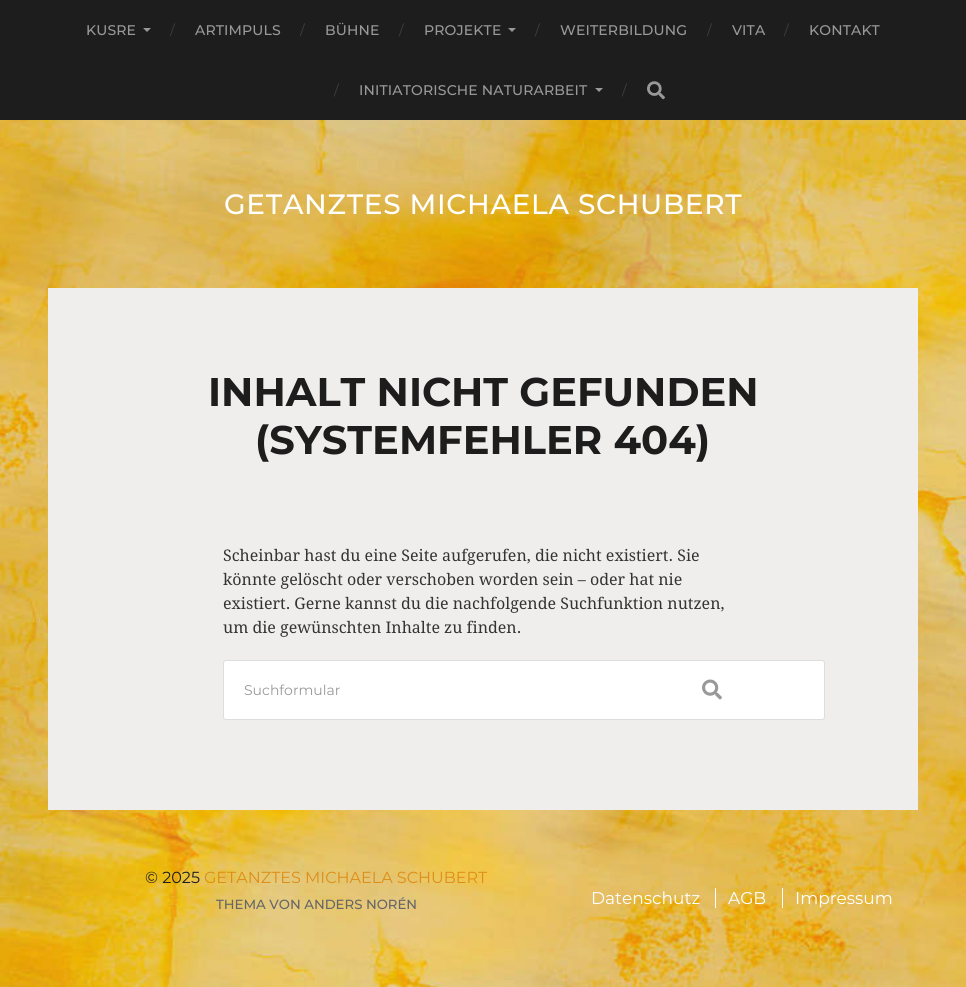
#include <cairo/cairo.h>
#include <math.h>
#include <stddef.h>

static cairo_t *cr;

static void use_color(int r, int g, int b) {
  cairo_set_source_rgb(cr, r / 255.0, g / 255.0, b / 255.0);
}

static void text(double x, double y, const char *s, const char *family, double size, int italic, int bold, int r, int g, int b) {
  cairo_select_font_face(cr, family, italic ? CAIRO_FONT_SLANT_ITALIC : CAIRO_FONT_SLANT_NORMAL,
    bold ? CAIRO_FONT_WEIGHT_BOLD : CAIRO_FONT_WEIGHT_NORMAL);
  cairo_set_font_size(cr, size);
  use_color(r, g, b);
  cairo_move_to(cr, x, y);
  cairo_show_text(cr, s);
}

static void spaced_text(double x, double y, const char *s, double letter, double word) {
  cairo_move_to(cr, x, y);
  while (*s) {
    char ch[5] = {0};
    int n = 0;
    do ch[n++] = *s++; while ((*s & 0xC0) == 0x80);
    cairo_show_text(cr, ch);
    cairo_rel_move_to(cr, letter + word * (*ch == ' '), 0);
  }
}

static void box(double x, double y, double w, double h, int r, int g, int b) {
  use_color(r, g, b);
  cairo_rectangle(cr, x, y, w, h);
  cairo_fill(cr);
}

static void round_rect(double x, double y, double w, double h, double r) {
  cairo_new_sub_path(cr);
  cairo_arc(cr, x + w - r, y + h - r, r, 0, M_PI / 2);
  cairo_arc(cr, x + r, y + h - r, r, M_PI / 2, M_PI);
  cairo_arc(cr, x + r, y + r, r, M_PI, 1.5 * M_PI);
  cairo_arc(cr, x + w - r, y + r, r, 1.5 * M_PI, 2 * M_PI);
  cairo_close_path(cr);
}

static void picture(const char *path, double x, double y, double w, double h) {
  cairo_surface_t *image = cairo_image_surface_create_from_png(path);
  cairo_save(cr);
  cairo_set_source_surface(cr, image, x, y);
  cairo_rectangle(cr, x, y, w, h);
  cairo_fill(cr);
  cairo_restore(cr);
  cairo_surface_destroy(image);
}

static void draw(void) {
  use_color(29, 29, 29);
  cairo_paint(cr);
  use_color(153, 153, 153);
  cairo_new_path(cr);
  cairo_move_to(cr, 143, 28);
  cairo_line_to(cr, 151, 28);
  cairo_line_to(cr, 147, 32);
  cairo_close_path(cr);
  cairo_fill(cr);
  cairo_new_path(cr);
  cairo_move_to(cr, 508, 28);
  cairo_line_to(cr, 516, 28);
  cairo_line_to(cr, 512, 32);
  cairo_close_path(cr);
  cairo_fill(cr);
  cairo_new_path(cr);
  cairo_move_to(cr, 595, 88);
  cairo_line_to(cr, 603, 88);
  cairo_line_to(cr, 599, 92);
  cairo_close_path(cr);
  cairo_fill(cr);
  picture("img_01.png", 647, 81, 18, 19);
  picture("img_02.png", 0, 120, 966, 867);
  box(48, 288, 870, 522, 240, 237, 237);
  use_color(255, 255, 255);
  round_rect(223.5, 660.5, 601, 59, 2.5);
  cairo_fill_preserve(cr);
  use_color(221, 221, 221);
  cairo_set_line_width(cr, 1);
  cairo_stroke(cr);
  picture("img_03.png", 702, 679, 20, 21);
  box(715, 888, 1, 20, 255, 255, 255);
  box(782, 888, 1, 20, 255, 255, 255);
  cairo_select_font_face(cr, "Montserrat Medium", CAIRO_FONT_SLANT_NORMAL, CAIRO_FONT_WEIGHT_NORMAL);
  cairo_set_font_size(cr, 14);
  use_color(153, 153, 153);
  spaced_text(86, 35, "KUSRE", 0.15, 0);
  text(170, 35, "/", "Montserrat", 14, 0, 0, 61, 61, 61);
  cairo_select_font_face(cr, "Montserrat Medium", CAIRO_FONT_SLANT_NORMAL, CAIRO_FONT_WEIGHT_NORMAL);
  use_color(153, 153, 153);
  spaced_text(195, 35, "ARTIMPULS", 0.15, 0);
  text(300, 35, "/", "Montserrat", 14, 0, 0, 61, 61, 61);
  cairo_select_font_face(cr, "Montserrat Medium", CAIRO_FONT_SLANT_NORMAL, CAIRO_FONT_WEIGHT_NORMAL);
  use_color(153, 153, 153);
  spaced_text(325, 35, "BÜHNE", 0.15, 0);
  text(399, 35, "/", "Montserrat", 14, 0, 0, 61, 61, 61);
  cairo_select_font_face(cr, "Montserrat Medium", CAIRO_FONT_SLANT_NORMAL, CAIRO_FONT_WEIGHT_NORMAL);
  use_color(153, 153, 153);
  spaced_text(424, 35, "PROJEKTE", 0.15, 0);
  text(535, 35, "/", "Montserrat", 14, 0, 0, 61, 61, 61);
  cairo_select_font_face(cr, "Montserrat Medium", CAIRO_FONT_SLANT_NORMAL, CAIRO_FONT_WEIGHT_NORMAL);
  use_color(153, 153, 153);
  spaced_text(560, 35, "WEITERBILDUNG", 0.15, 0);
  text(707, 35, "/", "Montserrat", 14, 0, 0, 61, 61, 61);
  cairo_select_font_face(cr, "Montserrat Medium", CAIRO_FONT_SLANT_NORMAL, CAIRO_FONT_WEIGHT_NORMAL);
  use_color(153, 153, 153);
  spaced_text(732, 35, "VITA", 0.15, 0);
  text(784, 35, "/", "Montserrat", 14, 0, 0, 61, 61, 61);
  cairo_select_font_face(cr, "Montserrat Medium", CAIRO_FONT_SLANT_NORMAL, CAIRO_FONT_WEIGHT_NORMAL);
  use_color(153, 153, 153);
  spaced_text(809, 35, "KONTAKT", 0.15, 0);
  text(334, 95, "/", "Montserrat", 14, 0, 0, 61, 61, 61);
  cairo_select_font_face(cr, "Montserrat Medium", CAIRO_FONT_SLANT_NORMAL, CAIRO_FONT_WEIGHT_NORMAL);
  use_color(153, 153, 153);
  spaced_text(359, 95, "INITIATORISCHE NATURARBEIT", 0.15, 0);
  text(622, 95, "/", "Montserrat", 14, 0, 0, 61, 61, 61);
  cairo_select_font_face(cr, "Montserrat Medium", CAIRO_FONT_SLANT_NORMAL, CAIRO_FONT_WEIGHT_NORMAL);
  cairo_set_font_size(cr, 28);
  use_color(255, 255, 255);
  spaced_text(224, 214, "GETANZTES MICHAELA SCHUBERT", 0.7, 0);
  text(208, 406, "INHALT NICHT GEFUNDEN", "Montserrat", 40, 0, 1, 29, 29, 29);
  text(255, 454, "(SYSTEMFEHLER 404)", "Montserrat", 40, 0, 1, 29, 29, 29);
  text(223, 561, "Scheinbar hast du eine Seite aufgerufen, die nicht existiert. Sie", "Droid Serif", 16, 0, 0, 51, 51, 51);
  text(223, 585, "könnte gelöscht oder verschoben worden sein – oder hat nie", "Droid Serif", 16, 0, 0, 51, 51, 51);
  text(223, 609, "existiert. Gerne kannst du die nachfolgende Suchfunktion nutzen,", "Droid Serif", 16, 0, 0, 51, 51, 51);
  text(223, 633, "um die gewünschten Inhalte zu finden.", "Droid Serif", 16, 0, 0, 51, 51, 51);
  text(244, 695, "Suchformular", "Montserrat", 14, 0, 0, 153, 153, 153);
  text(145, 883, "© 2025", "Montserrat", 16, 0, 0, 29, 29, 29);
  text(204, 883, "GETANZTES MICHAELA SCHUBERT", "Montserrat", 16, 0, 0, 221, 142, 24);
  text(216, 909, "THEMA VON ANDERS NORÉN", "Montserrat Medium", 13.25, 0, 0, 102, 102, 102);
  text(591, 904, "Datenschutz", "Montserrat", 17, 0, 0, 255, 255, 255);
  text(728, 904, "AGB", "Montserrat", 17, 0, 0, 255, 255, 255);
  text(795, 904, "Impressum", "Montserrat", 17, 0, 0, 255, 255, 255);
}

int main(void) {
  cairo_surface_t *surface = cairo_image_surface_create(CAIRO_FORMAT_RGB24, 966, 987);
  cr = cairo_create(surface);
  cairo_font_options_t *options = cairo_font_options_create();
  cairo_font_options_set_hint_metrics(options, CAIRO_HINT_METRICS_OFF);
  cairo_font_options_set_hint_style(options, CAIRO_HINT_STYLE_NONE);
  cairo_set_font_options(cr, options);
  cairo_set_miter_limit(cr, 4);
  draw();
  cairo_surface_write_to_png(surface, "out.png");
  cairo_font_options_destroy(options);
  cairo_destroy(cr);
  cairo_surface_destroy(surface);
  return 0;
}
